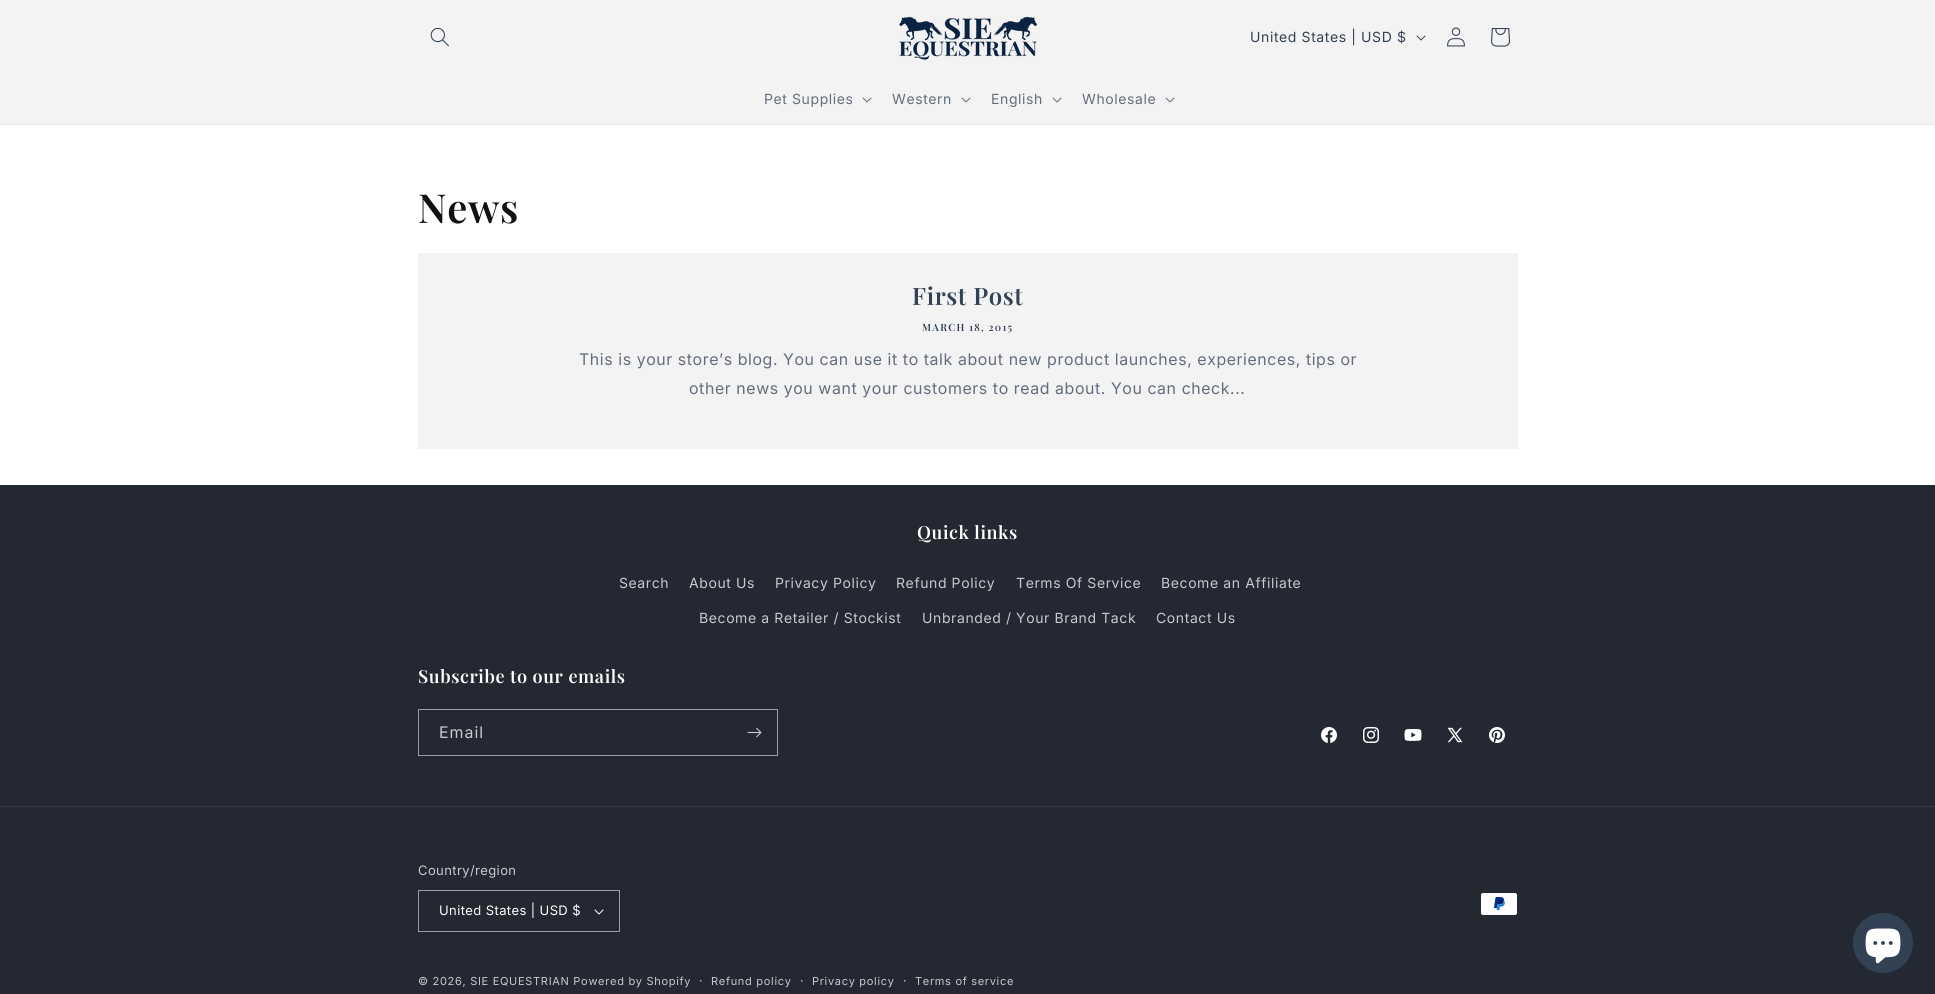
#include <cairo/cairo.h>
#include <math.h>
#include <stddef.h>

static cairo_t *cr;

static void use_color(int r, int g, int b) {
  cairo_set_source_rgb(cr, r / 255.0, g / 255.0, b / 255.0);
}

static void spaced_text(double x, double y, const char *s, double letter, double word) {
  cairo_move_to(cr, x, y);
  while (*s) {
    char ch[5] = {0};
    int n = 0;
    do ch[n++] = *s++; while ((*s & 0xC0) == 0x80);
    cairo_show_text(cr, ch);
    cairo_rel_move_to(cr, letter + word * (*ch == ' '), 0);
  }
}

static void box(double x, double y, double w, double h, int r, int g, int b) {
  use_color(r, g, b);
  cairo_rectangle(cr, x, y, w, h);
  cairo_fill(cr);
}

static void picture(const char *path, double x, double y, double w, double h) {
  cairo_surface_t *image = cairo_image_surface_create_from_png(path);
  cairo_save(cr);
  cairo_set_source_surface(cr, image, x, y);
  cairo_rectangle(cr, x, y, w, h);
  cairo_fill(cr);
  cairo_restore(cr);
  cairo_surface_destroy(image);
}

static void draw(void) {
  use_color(255, 255, 255);
  cairo_paint(cr);
  box(0, 0, 1935, 124, 243, 243, 243);
  box(0, 124, 1935, 1, 228, 229, 230);
  picture("img_01.png", 430, 27, 19, 20);
  picture("img_02.png", 899, 16, 138, 44);
  picture("img_03.png", 1416, 35, 10, 6);
  picture("img_04.png", 1447, 27, 18, 20);
  picture("img_05.png", 1491, 28, 20, 19);
  picture("img_06.png", 862, 97, 10, 6);
  picture("img_06.png", 961, 97, 10, 6);
  picture("img_06.png", 1052, 97, 10, 6);
  picture("img_06.png", 1165, 97, 10, 6);
  box(418, 253, 1100, 196, 243, 243, 243);
  box(0, 485, 1935, 509, 36, 40, 51);
  cairo_rectangle(cr, 418.5, 709.5, 359, 46);
  use_color(156, 158, 163);
  cairo_set_line_width(cr, 1);
  cairo_stroke(cr);
  picture("img_07.png", 747, 727, 15, 11);
  picture("img_08.png", 1321, 727, 16, 16);
  picture("img_09.png", 1363, 727, 16, 16);
  picture("img_10.png", 1404, 729, 18, 12);
  picture("img_11.png", 1447, 727, 16, 16);
  picture("img_12.png", 1489, 727, 16, 16);
  box(0, 806, 1935, 1, 54, 57, 67);
  picture("img_13.png", 594, 909, 10, 6);
  cairo_rectangle(cr, 418.5, 890.5, 201, 41);
  use_color(156, 158, 163);
  cairo_stroke(cr);
  picture("img_14.png", 1481, 893, 36, 22);
  use_color(51, 65, 85);
  cairo_arc(cr, 1883, 943, 30, 0, 2 * M_PI);
  cairo_fill(cr);
  picture("img_15.png", 1865, 928, 36, 36);
  cairo_select_font_face(cr, "Inter", CAIRO_FONT_SLANT_NORMAL, CAIRO_FONT_WEIGHT_NORMAL);
  cairo_set_font_size(cr, 14);
  spaced_text(1250, 42, "United States | USD $", 0.6, 0);
  use_color(99, 110, 125);
  spaced_text(764, 104, "Pet Supplies", 0.6, 0);
  spaced_text(892, 104, "Western", 0.6, 0);
  spaced_text(991, 104, "English", 0.6, 0);
  spaced_text(1082, 104, "Wholesale", 0.6, 0);
  cairo_select_font_face(cr, "Playfair Display SemiBold", CAIRO_FONT_SLANT_NORMAL, CAIRO_FONT_WEIGHT_NORMAL);
  cairo_set_font_size(cr, 40);
  use_color(18, 18, 18);
  spaced_text(418, 223, "News", 0.6, 0);
  cairo_set_font_size(cr, 24);
  use_color(51, 65, 85);
  spaced_text(912, 305, "First Post", 0.6, 0);
  cairo_set_font_size(cr, 10);
  spaced_text(922, 331, "MARCH 18, 2015", 1.25, 0);
  cairo_select_font_face(cr, "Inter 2", CAIRO_FONT_SLANT_NORMAL, CAIRO_FONT_WEIGHT_NORMAL);
  cairo_set_font_size(cr, 16);
  use_color(99, 110, 125);
  spaced_text(579, 365, "This is your store’s blog. You can use it to talk about new product launches, experiences, tips or", 0.6, 0);
  spaced_text(689, 394, "other news you want your customers to read about. You can check...", 0.6, 0);
  cairo_select_font_face(cr, "Playfair Display SemiBold", CAIRO_FONT_SLANT_NORMAL, CAIRO_FONT_WEIGHT_NORMAL);
  cairo_set_font_size(cr, 18);
  use_color(255, 255, 255);
  spaced_text(917, 539, "Quick links", 0.6, 0);
  cairo_select_font_face(cr, "Inter", CAIRO_FONT_SLANT_NORMAL, CAIRO_FONT_WEIGHT_NORMAL);
  cairo_set_font_size(cr, 14);
  use_color(200, 201, 204);
  spaced_text(619, 588, "Search", 0.6, 0);
  spaced_text(689, 588, "About Us", 0.6, 0);
  spaced_text(775, 588, "Privacy Policy", 0.6, 0);
  spaced_text(896, 588, "Refund Policy", 0.6, 0);
  spaced_text(1016, 588, "Terms Of Service", 0.6, 0);
  spaced_text(1161, 588, "Become an Affiliate", 0.6, 0);
  spaced_text(699, 623, "Become a Retailer / Stockist", 0.6, 0);
  spaced_text(922, 623, "Unbranded / Your Brand Tack", 0.6, 0);
  spaced_text(1156, 623, "Contact Us", 0.6, 0);
  cairo_select_font_face(cr, "Playfair Display SemiBold", CAIRO_FONT_SLANT_NORMAL, CAIRO_FONT_WEIGHT_NORMAL);
  cairo_set_font_size(cr, 18);
  use_color(255, 255, 255);
  spaced_text(418, 683, "Subscribe to our emails", 0.6, 0);
  cairo_select_font_face(cr, "Inter 2", CAIRO_FONT_SLANT_NORMAL, CAIRO_FONT_WEIGHT_NORMAL);
  cairo_set_font_size(cr, 16);
  use_color(200, 201, 204);
  spaced_text(439, 738, "Email", 1, 0);
  cairo_select_font_face(cr, "Inter", CAIRO_FONT_SLANT_NORMAL, CAIRO_FONT_WEIGHT_NORMAL);
  cairo_set_font_size(cr, 13);
  spaced_text(418, 875, "Country/region", 0.4, 0);
  use_color(255, 255, 255);
  spaced_text(439, 915, "United States | USD $", 0.4, 0);
  cairo_set_font_size(cr, 11);
  use_color(200, 201, 204);
  spaced_text(418, 985, "© 2026, SIE EQUESTRIAN Powered by Shopify", 0.7, 0);
  cairo_set_font_size(cr, 12);
  spaced_text(699, 985, "·", 0.7, 0);
  cairo_set_font_size(cr, 11);
  spaced_text(711, 985, "Refund policy", 0.7, 0);
  cairo_set_font_size(cr, 12);
  spaced_text(800, 985, "·", 0.7, 0);
  cairo_set_font_size(cr, 11);
  spaced_text(812, 985, "Privacy policy", 0.7, 0);
  cairo_set_font_size(cr, 12);
  spaced_text(903, 985, "·", 0.7, 0);
  cairo_set_font_size(cr, 11);
  spaced_text(915, 985, "Terms of service", 0.7, 0);
}

int main(void) {
  cairo_surface_t *surface = cairo_image_surface_create(CAIRO_FORMAT_RGB24, 1935, 994);
  cr = cairo_create(surface);
  cairo_font_options_t *options = cairo_font_options_create();
  cairo_font_options_set_hint_metrics(options, CAIRO_HINT_METRICS_OFF);
  cairo_font_options_set_hint_style(options, CAIRO_HINT_STYLE_NONE);
  cairo_set_font_options(cr, options);
  cairo_set_miter_limit(cr, 4);
  draw();
  cairo_surface_write_to_png(surface, "out.png");
  cairo_font_options_destroy(options);
  cairo_destroy(cr);
  cairo_surface_destroy(surface);
  return 0;
}
